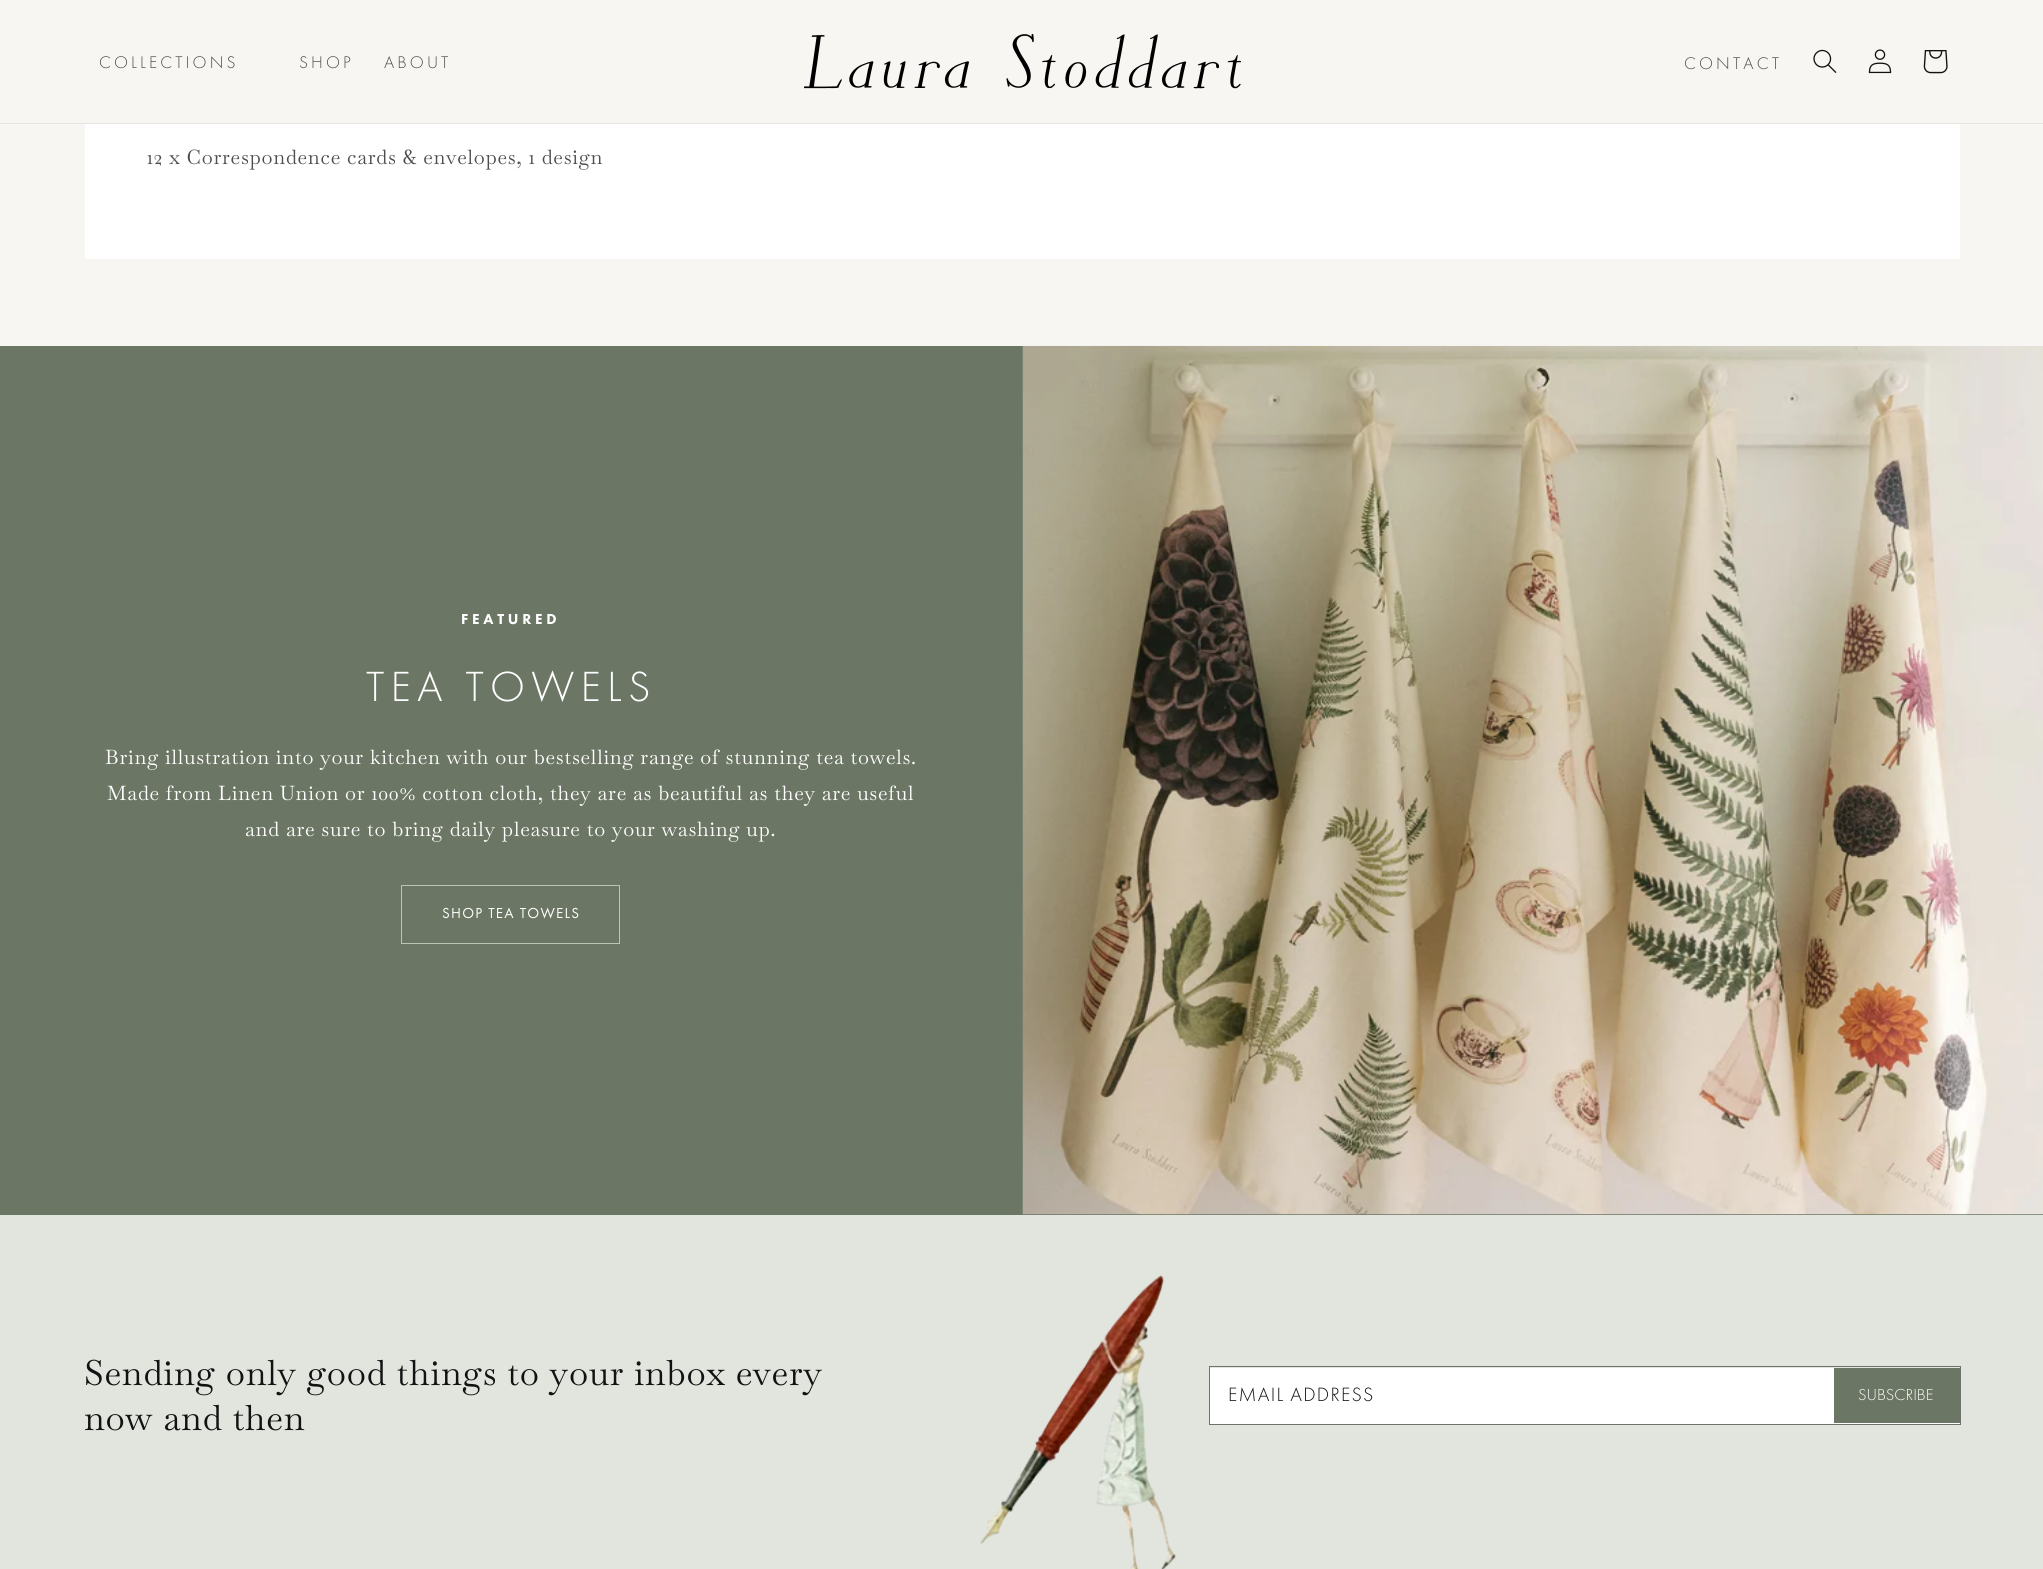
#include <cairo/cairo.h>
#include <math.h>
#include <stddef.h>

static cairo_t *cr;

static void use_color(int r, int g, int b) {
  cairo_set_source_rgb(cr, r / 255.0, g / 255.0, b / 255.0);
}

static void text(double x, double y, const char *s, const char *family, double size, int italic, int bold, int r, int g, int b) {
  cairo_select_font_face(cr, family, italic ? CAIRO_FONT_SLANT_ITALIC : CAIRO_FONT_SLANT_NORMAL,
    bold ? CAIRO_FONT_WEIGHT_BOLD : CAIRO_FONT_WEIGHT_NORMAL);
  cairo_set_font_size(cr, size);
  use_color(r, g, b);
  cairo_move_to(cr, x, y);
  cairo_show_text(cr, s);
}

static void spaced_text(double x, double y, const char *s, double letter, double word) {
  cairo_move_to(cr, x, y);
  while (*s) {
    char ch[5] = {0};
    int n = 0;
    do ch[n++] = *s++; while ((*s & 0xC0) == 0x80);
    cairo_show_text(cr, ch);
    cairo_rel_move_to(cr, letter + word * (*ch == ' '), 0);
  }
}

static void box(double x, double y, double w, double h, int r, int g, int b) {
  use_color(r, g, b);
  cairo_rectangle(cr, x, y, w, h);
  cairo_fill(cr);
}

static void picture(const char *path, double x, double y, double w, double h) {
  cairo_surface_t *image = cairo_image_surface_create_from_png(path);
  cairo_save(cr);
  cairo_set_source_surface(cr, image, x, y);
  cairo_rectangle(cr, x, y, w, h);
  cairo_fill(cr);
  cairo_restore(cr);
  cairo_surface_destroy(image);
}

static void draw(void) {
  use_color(247, 246, 242);
  cairo_paint(cr);
  box(0, 123, 2043, 1, 229, 228, 224);
  picture("img_01.png", 804, 34, 437, 55);
  picture("img_02.png", 1813, 49, 24, 24);
  picture("img_03.png", 1868, 49, 24, 25);
  picture("img_04.png", 1923, 50, 25, 24);
  box(85, 124, 1875, 135, 255, 255, 255);
  box(0, 346, 2043, 869, 108, 118, 100);
  cairo_rectangle(cr, 401.5, 885.5, 218, 58);
  use_color(186, 197, 185);
  cairo_set_line_width(cr, 1);
  cairo_stroke(cr);
  picture("img_05.png", 1022, 345, 1021, 870);
  box(0, 1215, 2043, 354, 225, 229, 222);
  picture("img_06.png", 980, 1275, 196, 294);
  cairo_rectangle(cr, 1209.5, 1366.5, 751, 58);
  use_color(111, 113, 110);
  cairo_stroke(cr);
  box(1210, 1368, 750, 56, 255, 255, 255);
  box(1834, 1368, 126, 55, 108, 118, 100);
  cairo_select_font_face(cr, "Futura PT Light", CAIRO_FONT_SLANT_NORMAL, CAIRO_FONT_WEIGHT_NORMAL);
  cairo_set_font_size(cr, 17.5);
  use_color(77, 77, 77);
  spaced_text(99, 68, "COLLECTIONS", 3.1, 0);
  spaced_text(299, 68, "SHOP", 3.1, 0);
  spaced_text(384, 68, "ABOUT", 3.1, 0);
  spaced_text(1684, 69, "CONTACT", 3.1, 0);
  cairo_select_font_face(cr, "Baskervville", CAIRO_FONT_SLANT_NORMAL, CAIRO_FONT_WEIGHT_NORMAL);
  cairo_set_font_size(cr, 20);
  spaced_text(147, 164, "12 x Correspondence cards & envelopes, 1 design", 0.75, 0);
  cairo_select_font_face(cr, "Futura PT Black", CAIRO_FONT_SLANT_NORMAL, CAIRO_FONT_WEIGHT_NORMAL);
  cairo_set_font_size(cr, 15);
  use_color(255, 255, 255);
  spaced_text(461, 624, "FEATURED", 3.75, 0);
  cairo_select_font_face(cr, "Futura PT Light", CAIRO_FONT_SLANT_NORMAL, CAIRO_FONT_WEIGHT_NORMAL);
  cairo_set_font_size(cr, 43.75);
  spaced_text(366, 701, "TEA TOWELS", 6.25, 0);
  cairo_select_font_face(cr, "Baskervville", CAIRO_FONT_SLANT_NORMAL, CAIRO_FONT_WEIGHT_NORMAL);
  cairo_set_font_size(cr, 20);
  spaced_text(105, 764, "Bring illustration into your kitchen with our bestselling range of stunning tea towels.", 0.75, 0);
  spaced_text(107, 800, "Made from Linen Union or 100% cotton cloth, they are as beautiful as they are useful", 0.75, 0);
  spaced_text(245, 836, "and are sure to bring daily pleasure to your washing up.", 0.75, 0);
  cairo_select_font_face(cr, "Futura PT", CAIRO_FONT_SLANT_NORMAL, CAIRO_FONT_WEIGHT_NORMAL);
  cairo_set_font_size(cr, 15);
  spaced_text(442, 918, "SHOP TEA TOWELS", 1.25, 0);
  cairo_select_font_face(cr, "Baskervville", CAIRO_FONT_SLANT_NORMAL, CAIRO_FONT_WEIGHT_NORMAL);
  cairo_set_font_size(cr, 35);
  use_color(18, 18, 18);
  spaced_text(84, 1385, "Sending only good things to your inbox every", 0.75, 0);
  spaced_text(84, 1430, "now and then", 0.75, 0);
  cairo_select_font_face(cr, "Futura PT Light", CAIRO_FONT_SLANT_NORMAL, CAIRO_FONT_WEIGHT_NORMAL);
  cairo_set_font_size(cr, 20);
  spaced_text(1228, 1401, "EMAIL ADDRESS", 1.25, 0);
  text(1858, 1400, "SUBSCRIBE", "Futura PT Light", 16.5, 0, 0, 255, 255, 255);
}

int main(void) {
  cairo_surface_t *surface = cairo_image_surface_create(CAIRO_FORMAT_RGB24, 2043, 1569);
  cr = cairo_create(surface);
  cairo_font_options_t *options = cairo_font_options_create();
  cairo_font_options_set_hint_metrics(options, CAIRO_HINT_METRICS_OFF);
  cairo_font_options_set_hint_style(options, CAIRO_HINT_STYLE_NONE);
  cairo_set_font_options(cr, options);
  cairo_set_miter_limit(cr, 4);
  draw();
  cairo_surface_write_to_png(surface, "out.png");
  cairo_font_options_destroy(options);
  cairo_destroy(cr);
  cairo_surface_destroy(surface);
  return 0;
}
